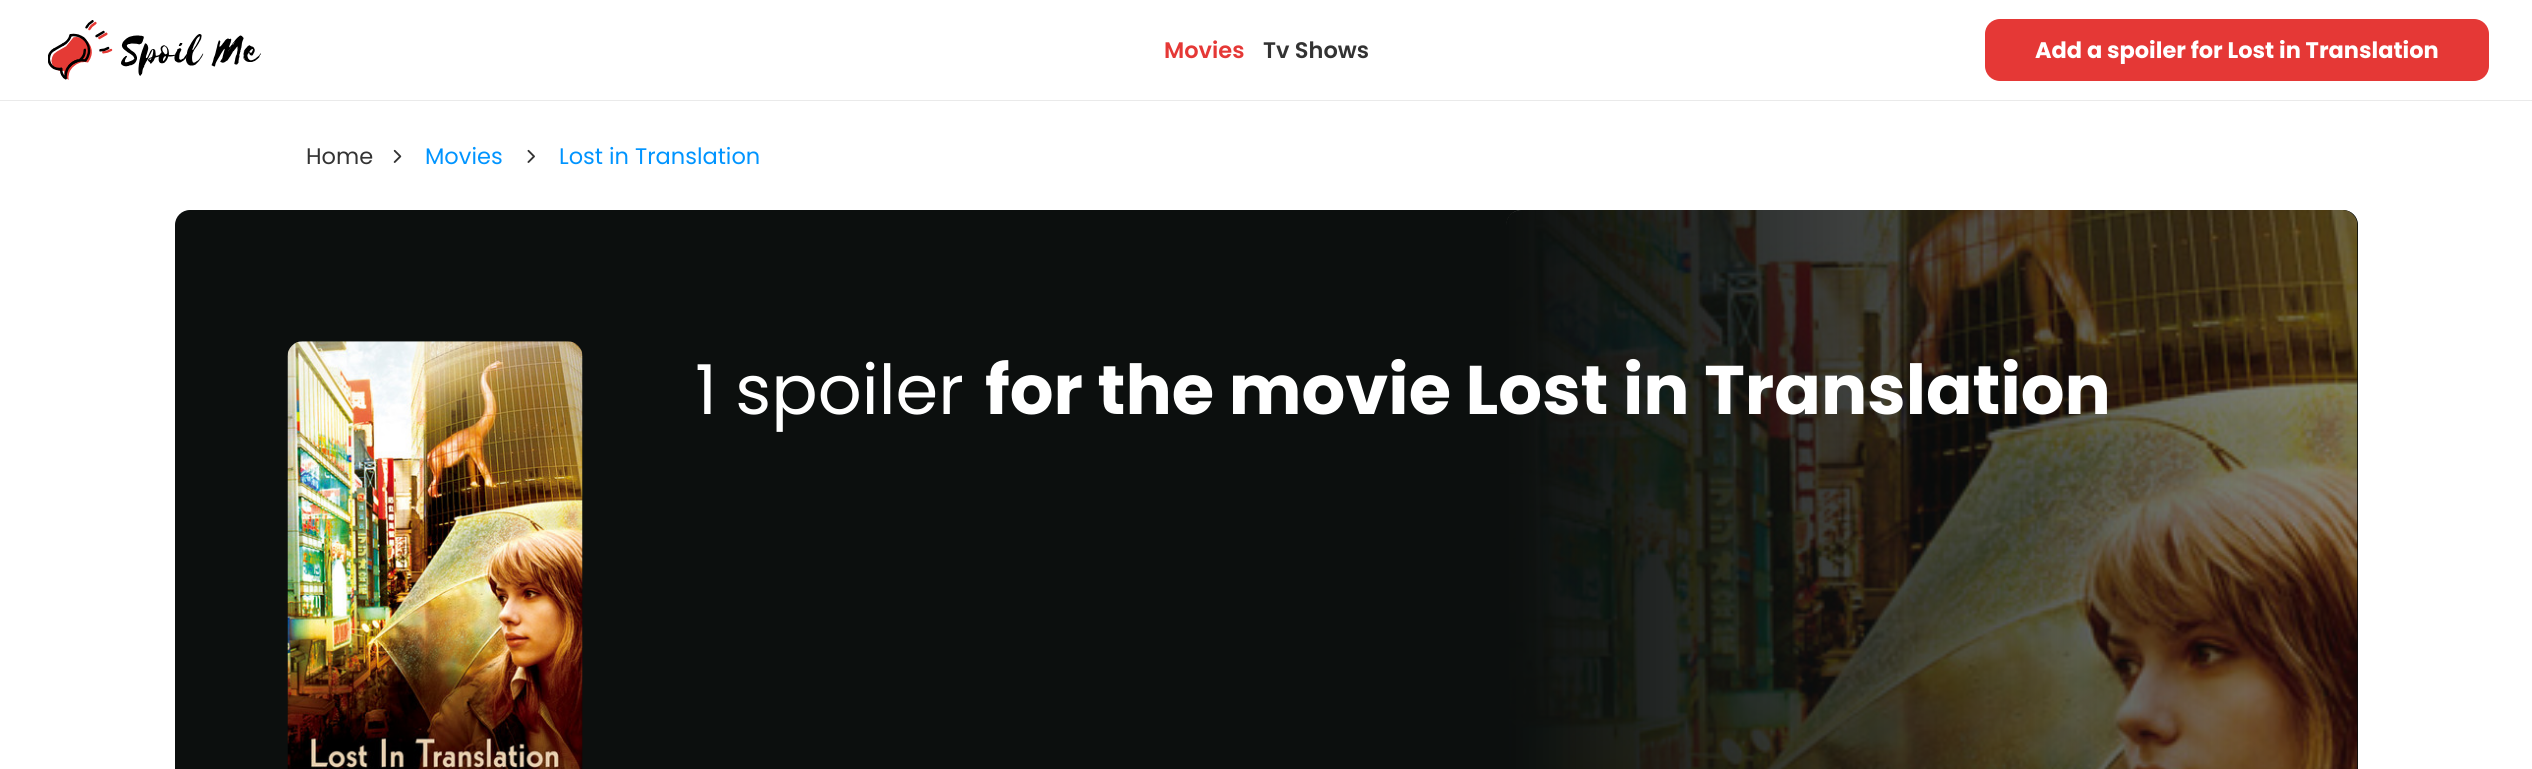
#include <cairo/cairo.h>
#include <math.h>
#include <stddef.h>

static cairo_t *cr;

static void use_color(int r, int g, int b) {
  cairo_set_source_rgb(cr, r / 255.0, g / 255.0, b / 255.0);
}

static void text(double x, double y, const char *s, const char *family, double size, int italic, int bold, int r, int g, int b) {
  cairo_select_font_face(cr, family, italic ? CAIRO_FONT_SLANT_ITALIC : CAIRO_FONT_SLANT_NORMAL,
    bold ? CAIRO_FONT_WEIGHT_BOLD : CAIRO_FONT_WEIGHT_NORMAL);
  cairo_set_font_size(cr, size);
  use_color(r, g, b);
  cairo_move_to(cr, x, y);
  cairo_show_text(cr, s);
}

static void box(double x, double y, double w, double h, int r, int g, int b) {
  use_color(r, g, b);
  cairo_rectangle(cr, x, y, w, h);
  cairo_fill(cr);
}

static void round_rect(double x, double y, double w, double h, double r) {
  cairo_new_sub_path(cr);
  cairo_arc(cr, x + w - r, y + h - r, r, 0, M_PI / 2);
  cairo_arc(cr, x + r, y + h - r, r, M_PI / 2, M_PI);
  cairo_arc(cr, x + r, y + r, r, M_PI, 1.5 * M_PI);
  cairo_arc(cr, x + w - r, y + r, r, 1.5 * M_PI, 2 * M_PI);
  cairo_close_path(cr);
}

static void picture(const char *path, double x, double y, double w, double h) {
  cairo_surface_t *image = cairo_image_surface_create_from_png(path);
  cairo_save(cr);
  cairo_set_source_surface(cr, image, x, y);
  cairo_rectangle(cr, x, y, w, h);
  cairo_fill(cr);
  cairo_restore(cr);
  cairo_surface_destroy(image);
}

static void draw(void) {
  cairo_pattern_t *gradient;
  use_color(255, 255, 255);
  cairo_paint(cr);
  box(0, 100, 2532, 1, 234, 234, 234);
  picture("img_01.png", 48, 20, 213, 60);
  use_color(229, 56, 54);
  round_rect(1985, 19, 504, 62, 15);
  cairo_fill(cr);
  picture("img_02.png", 393, 149, 9, 14);
  picture("img_03.png", 527, 149, 8, 14);
  use_color(12, 15, 14);
  round_rect(175, 210, 2183, 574, 15);
  cairo_fill(cr);
  picture("img_04.png", 1506, 210, 852, 559);
  gradient = cairo_pattern_create_linear(1506, 563, 2358, 563);
  cairo_pattern_add_color_stop_rgba(gradient, 0, 0.047, 0.059, 0.055, 1);
  cairo_pattern_add_color_stop_rgba(gradient, 1, 0.047, 0.059, 0.055, 0.5);
  cairo_set_source(cr, gradient);
  cairo_pattern_destroy(gradient);
  round_rect(1506, 210, 852, 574, 15);
  cairo_fill(cr);
  picture("img_05.png", 287, 341, 296, 428);
  text(1164, 58, "Movies", "Poppins SemiBold", 22.5, 0, 0, 229, 56, 54);
  text(1263, 58, "Tv Shows", "Poppins SemiBold", 22.5, 0, 0, 51, 51, 51);
  text(2035, 58, "Add a spoiler for Lost in Translation", "Poppins", 22.5, 0, 1, 255, 255, 255);
  text(306, 164, "Home", "Poppins", 22.5, 0, 0, 51, 51, 51);
  text(425, 164, "Movies", "Poppins", 22.5, 0, 0, 0, 148, 255);
  text(559, 164, "Lost in Translation", "Poppins", 22.5, 0, 0, 0, 148, 255);
  text(695, 414, "1 spoiler", "Poppins", 68.75, 0, 0, 255, 255, 255);
  text(985, 414, "for the movie Lost in Translation", "Poppins", 68.75, 0, 1, 255, 255, 255);
}

int main(void) {
  cairo_surface_t *surface = cairo_image_surface_create(CAIRO_FORMAT_RGB24, 2532, 769);
  cr = cairo_create(surface);
  cairo_font_options_t *options = cairo_font_options_create();
  cairo_font_options_set_hint_metrics(options, CAIRO_HINT_METRICS_OFF);
  cairo_font_options_set_hint_style(options, CAIRO_HINT_STYLE_NONE);
  cairo_set_font_options(cr, options);
  cairo_set_miter_limit(cr, 4);
  draw();
  cairo_surface_write_to_png(surface, "out.png");
  cairo_font_options_destroy(options);
  cairo_destroy(cr);
  cairo_surface_destroy(surface);
  return 0;
}
